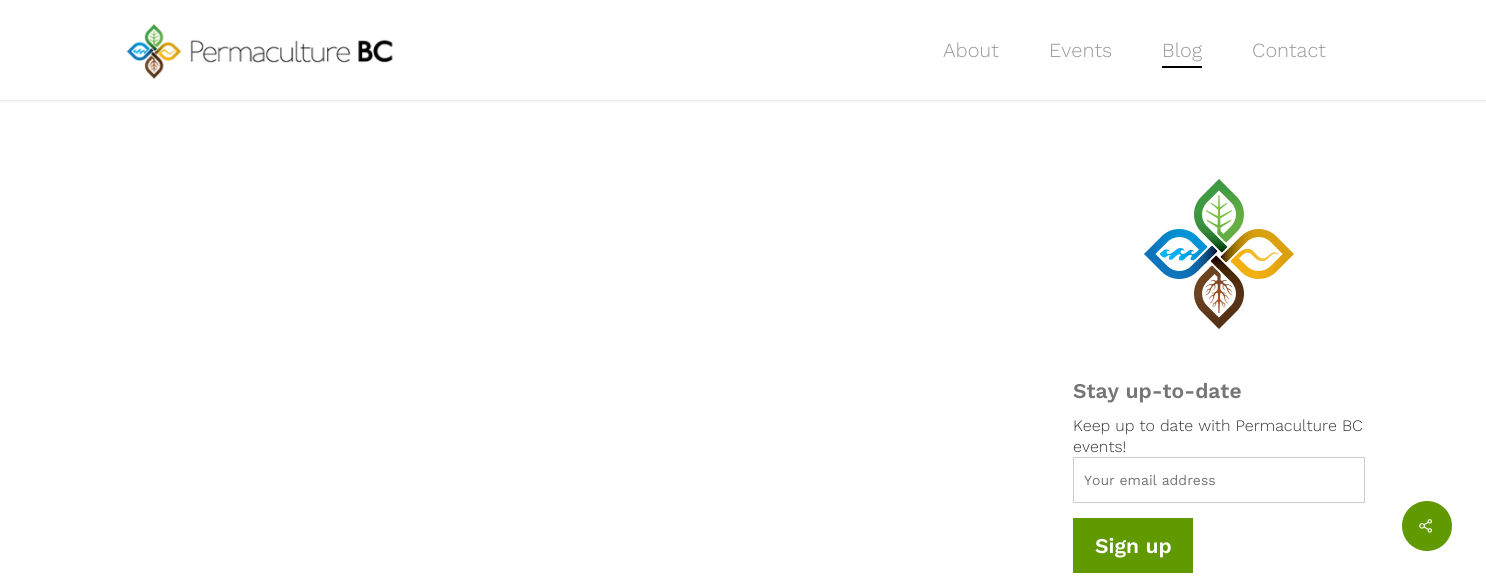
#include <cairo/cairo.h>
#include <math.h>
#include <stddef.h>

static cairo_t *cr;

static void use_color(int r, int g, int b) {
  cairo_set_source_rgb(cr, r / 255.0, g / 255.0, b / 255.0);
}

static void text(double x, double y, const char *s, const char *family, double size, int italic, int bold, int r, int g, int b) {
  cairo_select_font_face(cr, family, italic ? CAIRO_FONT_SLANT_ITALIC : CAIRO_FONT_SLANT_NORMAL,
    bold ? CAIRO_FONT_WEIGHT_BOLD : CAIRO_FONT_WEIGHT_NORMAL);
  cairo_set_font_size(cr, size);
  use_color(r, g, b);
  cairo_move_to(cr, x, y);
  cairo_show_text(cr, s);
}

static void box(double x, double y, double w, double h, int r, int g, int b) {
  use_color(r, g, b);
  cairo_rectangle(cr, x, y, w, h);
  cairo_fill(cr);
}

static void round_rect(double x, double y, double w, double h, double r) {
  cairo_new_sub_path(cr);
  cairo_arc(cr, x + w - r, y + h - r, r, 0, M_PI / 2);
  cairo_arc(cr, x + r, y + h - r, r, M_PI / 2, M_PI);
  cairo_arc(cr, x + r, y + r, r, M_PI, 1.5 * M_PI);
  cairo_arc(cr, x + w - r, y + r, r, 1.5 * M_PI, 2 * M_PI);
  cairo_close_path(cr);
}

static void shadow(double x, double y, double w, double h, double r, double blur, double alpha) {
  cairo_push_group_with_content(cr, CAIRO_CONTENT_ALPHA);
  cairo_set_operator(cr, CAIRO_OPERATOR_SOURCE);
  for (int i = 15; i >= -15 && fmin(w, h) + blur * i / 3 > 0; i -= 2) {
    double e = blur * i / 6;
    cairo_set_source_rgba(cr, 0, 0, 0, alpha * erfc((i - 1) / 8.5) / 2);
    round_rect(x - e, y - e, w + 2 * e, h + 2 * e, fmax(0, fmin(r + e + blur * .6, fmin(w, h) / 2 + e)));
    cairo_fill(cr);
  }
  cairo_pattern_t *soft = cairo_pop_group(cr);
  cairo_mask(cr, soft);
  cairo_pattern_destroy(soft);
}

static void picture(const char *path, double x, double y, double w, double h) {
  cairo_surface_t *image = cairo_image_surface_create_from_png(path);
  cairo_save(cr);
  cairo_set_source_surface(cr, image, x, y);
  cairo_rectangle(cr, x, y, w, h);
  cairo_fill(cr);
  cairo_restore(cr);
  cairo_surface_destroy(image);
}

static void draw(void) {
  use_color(255, 255, 255);
  cairo_paint(cr);
  use_color(0, 0, 0);
  shadow(0, 0, 1486, 100, 0, 1.5, 0.22);
  box(0, 0, 1486, 100, 255, 255, 255);
  picture("img_01.png", 126, 24, 267, 56);
  box(1162, 66, 40, 2, 0, 0, 0);
  picture("img_02.png", 1144, 179, 150, 150);
  cairo_rectangle(cr, 1073.5, 457.5, 291, 45);
  use_color(204, 204, 204);
  cairo_set_line_width(cr, 1);
  cairo_stroke(cr);
  box(1073, 518, 120, 55, 96, 153, 0);
  cairo_arc(cr, 1427, 526, 25, 0, 2 * M_PI);
  cairo_fill(cr);
  picture("img_03.png", 1419, 519, 13, 14);
  text(943, 57, "About", "Work Sans Light", 20, 0, 0, 153, 153, 153);
  text(1049, 57, "Events", "Work Sans Light", 20, 0, 0, 153, 153, 153);
  text(1162, 57, "Blog", "Work Sans Light", 20, 0, 0, 153, 153, 153);
  text(1252, 57, "Contact", "Work Sans Light", 20, 0, 0, 153, 153, 153);
  text(1073, 398, "Stay up-to-date", "Work Sans SemiBold", 21, 0, 0, 117, 117, 117);
  text(1073, 431, "Keep up to date with Permaculture BC", "Work Sans Light", 16, 0, 0, 51, 51, 51);
  text(1073, 452, "events!", "Work Sans Light", 16, 0, 0, 51, 51, 51);
  text(1084, 485, "Your email address", "Work Sans", 14, 0, 0, 117, 117, 117);
  text(1095, 553, "Sign up", "Work Sans SemiBold", 21, 0, 0, 255, 255, 255);
}

int main(void) {
  cairo_surface_t *surface = cairo_image_surface_create(CAIRO_FORMAT_RGB24, 1486, 585);
  cr = cairo_create(surface);
  cairo_font_options_t *options = cairo_font_options_create();
  cairo_font_options_set_hint_metrics(options, CAIRO_HINT_METRICS_OFF);
  cairo_font_options_set_hint_style(options, CAIRO_HINT_STYLE_NONE);
  cairo_set_font_options(cr, options);
  cairo_set_miter_limit(cr, 4);
  draw();
  cairo_surface_write_to_png(surface, "out.png");
  cairo_font_options_destroy(options);
  cairo_destroy(cr);
  cairo_surface_destroy(surface);
  return 0;
}
